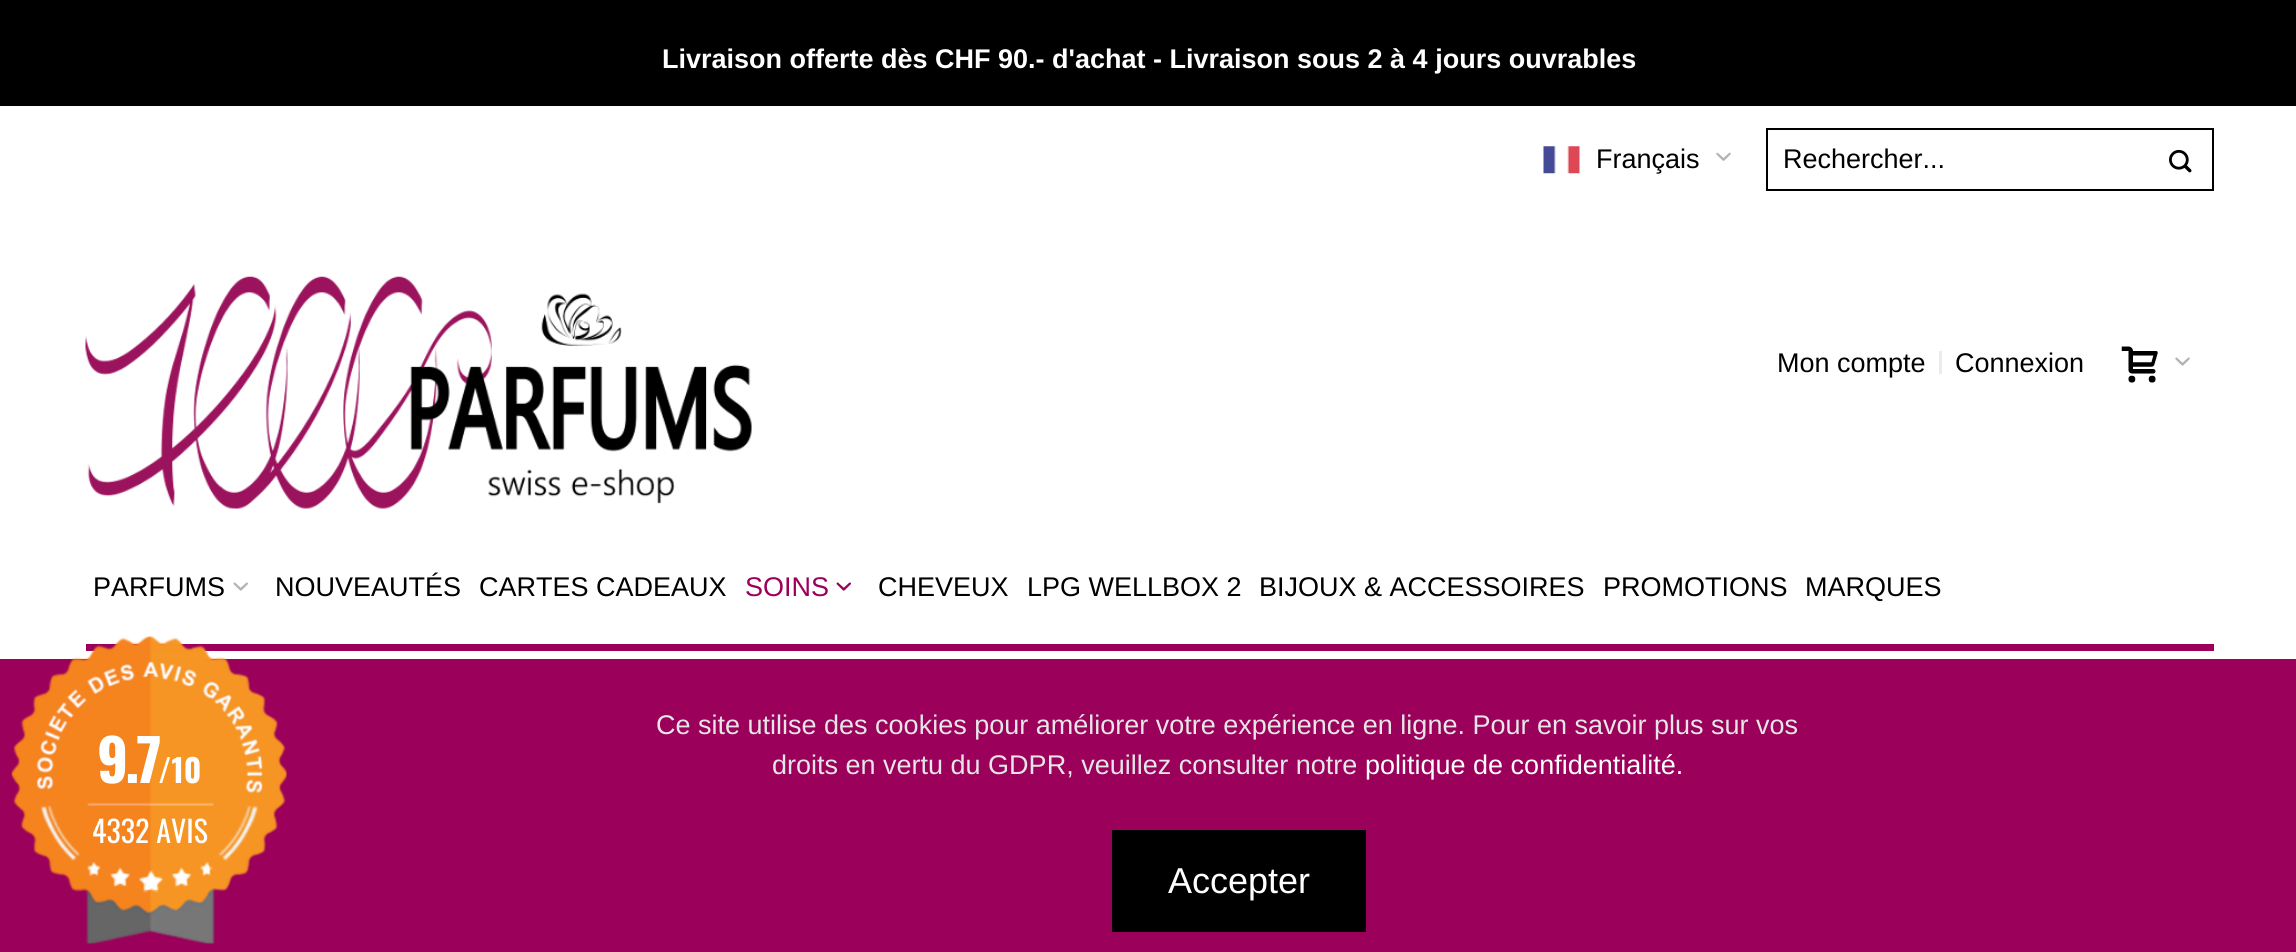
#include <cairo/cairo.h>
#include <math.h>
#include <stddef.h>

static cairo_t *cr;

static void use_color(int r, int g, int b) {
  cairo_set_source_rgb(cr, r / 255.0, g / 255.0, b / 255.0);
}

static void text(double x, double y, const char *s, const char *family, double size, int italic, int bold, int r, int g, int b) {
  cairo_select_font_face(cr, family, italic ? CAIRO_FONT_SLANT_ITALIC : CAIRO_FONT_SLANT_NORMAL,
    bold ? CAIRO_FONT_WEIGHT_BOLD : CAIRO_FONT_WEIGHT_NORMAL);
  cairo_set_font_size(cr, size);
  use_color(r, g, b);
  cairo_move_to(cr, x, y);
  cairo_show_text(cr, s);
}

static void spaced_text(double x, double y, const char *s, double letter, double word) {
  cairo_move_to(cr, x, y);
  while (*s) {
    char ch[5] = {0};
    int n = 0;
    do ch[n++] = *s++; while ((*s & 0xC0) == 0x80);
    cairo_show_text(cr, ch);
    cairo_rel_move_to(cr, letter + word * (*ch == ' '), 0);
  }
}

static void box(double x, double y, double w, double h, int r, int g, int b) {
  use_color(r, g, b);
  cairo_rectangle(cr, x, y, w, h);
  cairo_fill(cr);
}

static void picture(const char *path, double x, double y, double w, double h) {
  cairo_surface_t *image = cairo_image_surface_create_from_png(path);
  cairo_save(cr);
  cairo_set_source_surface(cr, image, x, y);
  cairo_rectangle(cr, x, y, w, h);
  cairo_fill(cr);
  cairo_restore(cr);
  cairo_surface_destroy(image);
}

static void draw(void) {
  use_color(255, 255, 255);
  cairo_paint(cr);
  box(0, 0, 2296, 106, 0, 0, 0);
  picture("img_01.png", 1543, 146, 37, 28);
  picture("img_02.png", 1716, 152, 15, 9);
  cairo_rectangle(cr, 1767, 129, 446, 61);
  cairo_stroke(cr);
  picture("img_03.png", 2169, 149, 23, 24);
  picture("img_04.png", 85, 276, 667, 233);
  box(1939, 351, 3, 23, 235, 235, 235);
  picture("img_05.png", 2121, 346, 37, 37);
  picture("img_06.png", 2175, 357, 15, 9);
  picture("img_07.png", 233, 582, 15, 9);
  picture("img_08.png", 836, 582, 15, 9);
  box(86, 644, 2128, 7, 155, 0, 91);
  box(0, 659, 2296, 293, 155, 0, 91);
  picture("img_09.png", 11, 636, 276, 308);
  picture("img_10.png", 87, 862, 123, 29);
  box(1112, 830, 254, 102, 0, 0, 0);
  text(662, 68, "Livraison offerte dès CHF 90.- d'achat - Livraison sous 2 à 4 jours ouvrables", "Liberation Sans", 27, 0, 1, 255, 255, 255);
  text(1596, 168, "Français", "Liberation Sans", 27, 0, 0, 0, 0, 0);
  text(1783, 168, "Rechercher...", "Liberation Sans", 27, 0, 0, 0, 0, 0);
  text(1777, 372, "Mon compte", "Liberation Sans", 27, 0, 0, 0, 0, 0);
  text(1955, 372, "Connexion", "Liberation Sans", 27, 0, 0, 0, 0, 0);
  text(93, 596, "PARFUMS", "Liberation Sans", 27, 0, 0, 0, 0, 0);
  text(275, 596, "NOUVEAUTÉS", "Liberation Sans", 27, 0, 0, 0, 0, 0);
  text(479, 596, "CARTES CADEAUX", "Liberation Sans", 27, 0, 0, 0, 0, 0);
  text(745, 596, "SOINS", "Liberation Sans", 27, 0, 0, 155, 0, 91);
  text(878, 596, "CHEVEUX", "Liberation Sans", 27, 0, 0, 0, 0, 0);
  text(1027, 596, "LPG WELLBOX 2", "Liberation Sans", 27, 0, 0, 0, 0, 0);
  text(1259, 596, "BIJOUX & ACCESSOIRES", "Liberation Sans", 27, 0, 0, 0, 0, 0);
  text(1603, 596, "PROMOTIONS", "Liberation Sans", 27, 0, 0, 0, 0, 0);
  text(1805, 596, "MARQUES", "Liberation Sans", 27, 0, 0, 0, 0, 0);
  cairo_select_font_face(cr, "Oswald", CAIRO_FONT_SLANT_NORMAL, CAIRO_FONT_WEIGHT_BOLD);
  cairo_set_font_size(cr, 58);
  use_color(255, 255, 255);
  spaced_text(97, 783, "9.7", -3, 0);
  text(158, 783, "/10", "Oswald", 32, 0, 1, 255, 255, 255);
  text(92, 843, "4332 AVIS", "Oswald", 30, 0, 0, 255, 255, 255);
  text(656, 734, "Ce site utilise des cookies pour améliorer votre expérience en ligne. Pour en savoir plus sur vos", "Liberation Sans", 27, 0, 0, 230, 230, 230);
  text(772, 774, "droits en vertu du GDPR, veuillez consulter notre", "Liberation Sans", 27, 0, 0, 230, 230, 230);
  text(1365, 774, "politique de confidentialité.", "Liberation Sans", 27, 0, 0, 255, 255, 255);
  text(1168, 893, "Accepter", "Liberation Sans", 36, 0, 0, 255, 255, 255);
}

int main(void) {
  cairo_surface_t *surface = cairo_image_surface_create(CAIRO_FORMAT_RGB24, 2296, 952);
  cr = cairo_create(surface);
  cairo_font_options_t *options = cairo_font_options_create();
  cairo_font_options_set_hint_metrics(options, CAIRO_HINT_METRICS_OFF);
  cairo_font_options_set_hint_style(options, CAIRO_HINT_STYLE_NONE);
  cairo_set_font_options(cr, options);
  cairo_set_miter_limit(cr, 4);
  draw();
  cairo_surface_write_to_png(surface, "out.png");
  cairo_font_options_destroy(options);
  cairo_destroy(cr);
  cairo_surface_destroy(surface);
  return 0;
}
